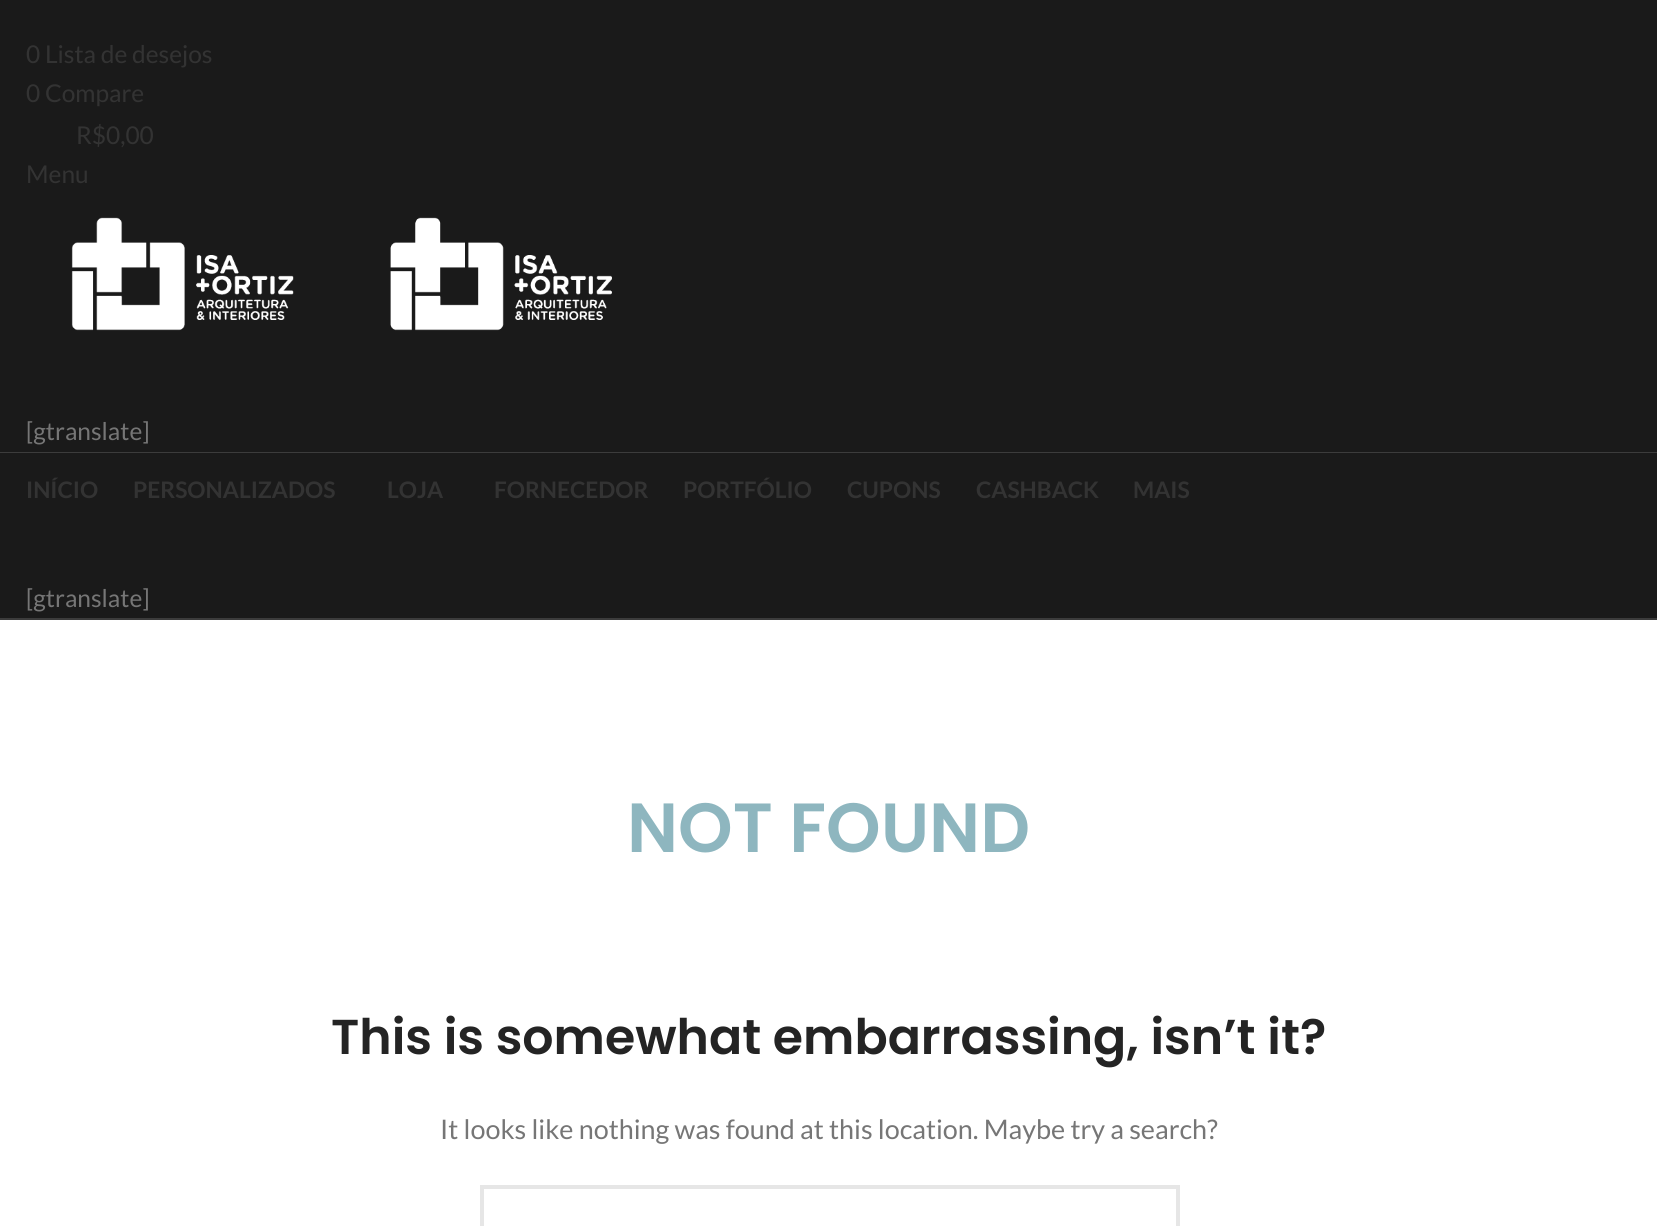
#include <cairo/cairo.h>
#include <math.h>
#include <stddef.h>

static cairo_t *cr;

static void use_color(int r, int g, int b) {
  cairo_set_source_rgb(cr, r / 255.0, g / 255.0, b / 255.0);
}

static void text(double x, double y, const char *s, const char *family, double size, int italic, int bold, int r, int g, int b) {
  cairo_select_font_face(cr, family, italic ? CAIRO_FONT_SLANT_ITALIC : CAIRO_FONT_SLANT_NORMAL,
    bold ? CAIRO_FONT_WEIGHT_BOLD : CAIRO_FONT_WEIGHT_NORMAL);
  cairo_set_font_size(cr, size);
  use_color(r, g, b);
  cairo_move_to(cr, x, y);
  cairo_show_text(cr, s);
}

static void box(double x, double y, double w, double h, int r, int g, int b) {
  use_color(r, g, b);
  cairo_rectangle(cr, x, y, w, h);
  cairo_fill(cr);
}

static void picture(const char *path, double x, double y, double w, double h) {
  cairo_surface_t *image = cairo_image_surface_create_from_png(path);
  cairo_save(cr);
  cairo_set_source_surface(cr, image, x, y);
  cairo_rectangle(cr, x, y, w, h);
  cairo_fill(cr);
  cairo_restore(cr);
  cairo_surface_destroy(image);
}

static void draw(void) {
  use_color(255, 255, 255);
  cairo_paint(cr);
  box(0, 0, 1657, 452, 26, 26, 26);
  box(0, 452, 1657, 1, 60, 60, 60);
  picture("img_01.png", 71, 217, 223, 114);
  picture("img_02.png", 390, 217, 222, 114);
  box(0, 453, 1657, 165, 26, 26, 26);
  box(0, 618, 1657, 2, 60, 60, 60);
  cairo_rectangle(cr, 482, 1187, 696, 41);
  use_color(230, 230, 230);
  cairo_set_line_width(cr, 4);
  cairo_stroke(cr);
  text(26, 63, "0 Lista de desejos", "Lato", 24.5, 0, 0, 51, 51, 51);
  text(26, 102, "0 Compare", "Lato", 24.5, 0, 0, 51, 51, 51);
  text(76, 144, "R$0,00", "Lato", 24.5, 0, 0, 51, 51, 51);
  text(26, 183, "Menu", "Lato", 24.5, 0, 0, 51, 51, 51);
  text(26, 440, "[gtranslate]", "Lato", 24.5, 0, 0, 118, 118, 118);
  text(26, 498, "INÍCIO", "Lato", 22.75, 0, 1, 51, 51, 51);
  text(133, 498, "PERSONALIZADOS", "Lato", 22.75, 0, 1, 51, 51, 51);
  text(387, 498, "LOJA", "Lato", 22.75, 0, 1, 51, 51, 51);
  text(494, 498, "FORNECEDOR", "Lato", 22.75, 0, 1, 51, 51, 51);
  text(683, 498, "PORTFÓLIO", "Lato", 22.75, 0, 1, 51, 51, 51);
  text(847, 498, "CUPONS", "Lato", 22.75, 0, 1, 51, 51, 51);
  text(976, 498, "CASHBACK", "Lato", 22.75, 0, 1, 51, 51, 51);
  text(1133, 498, "MAIS", "Lato", 22.75, 0, 1, 51, 51, 51);
  text(26, 607, "[gtranslate]", "Lato", 24.5, 0, 0, 118, 118, 118);
  text(627, 852, "NOT FOUND", "Poppins SemiBold", 69.5, 0, 0, 142, 182, 191);
  text(331, 1054, "This is somewhat embarrassing, isn’t it?", "Poppins SemiBold", 49, 0, 0, 36, 36, 36);
  text(440, 1139, "It looks like nothing was found at this location. Maybe try a search?", "Lato", 26.95, 0, 0, 118, 118, 118);
}

int main(void) {
  cairo_surface_t *surface = cairo_image_surface_create(CAIRO_FORMAT_RGB24, 1657, 1226);
  cr = cairo_create(surface);
  cairo_font_options_t *options = cairo_font_options_create();
  cairo_font_options_set_hint_metrics(options, CAIRO_HINT_METRICS_OFF);
  cairo_font_options_set_hint_style(options, CAIRO_HINT_STYLE_NONE);
  cairo_set_font_options(cr, options);
  cairo_set_miter_limit(cr, 4);
  draw();
  cairo_surface_write_to_png(surface, "out.png");
  cairo_font_options_destroy(options);
  cairo_destroy(cr);
  cairo_surface_destroy(surface);
  return 0;
}
